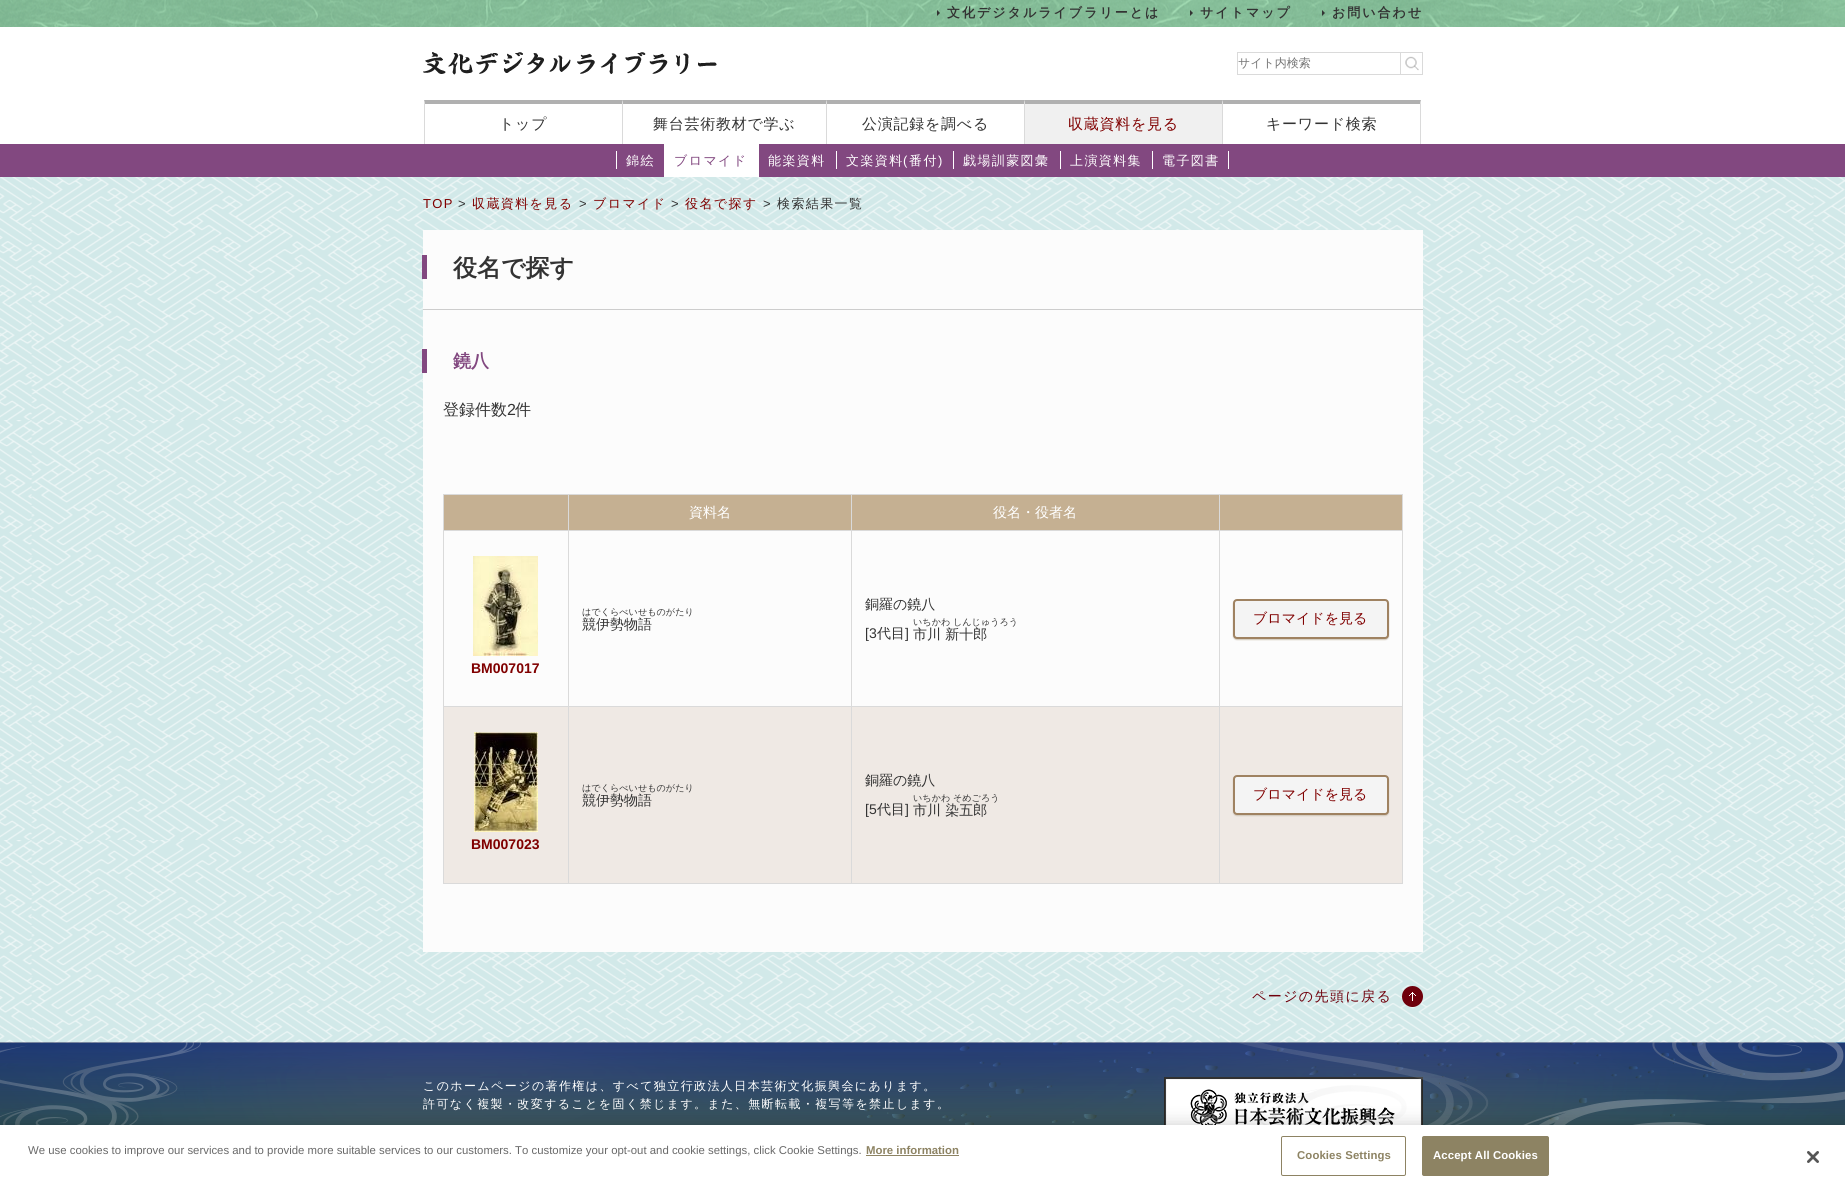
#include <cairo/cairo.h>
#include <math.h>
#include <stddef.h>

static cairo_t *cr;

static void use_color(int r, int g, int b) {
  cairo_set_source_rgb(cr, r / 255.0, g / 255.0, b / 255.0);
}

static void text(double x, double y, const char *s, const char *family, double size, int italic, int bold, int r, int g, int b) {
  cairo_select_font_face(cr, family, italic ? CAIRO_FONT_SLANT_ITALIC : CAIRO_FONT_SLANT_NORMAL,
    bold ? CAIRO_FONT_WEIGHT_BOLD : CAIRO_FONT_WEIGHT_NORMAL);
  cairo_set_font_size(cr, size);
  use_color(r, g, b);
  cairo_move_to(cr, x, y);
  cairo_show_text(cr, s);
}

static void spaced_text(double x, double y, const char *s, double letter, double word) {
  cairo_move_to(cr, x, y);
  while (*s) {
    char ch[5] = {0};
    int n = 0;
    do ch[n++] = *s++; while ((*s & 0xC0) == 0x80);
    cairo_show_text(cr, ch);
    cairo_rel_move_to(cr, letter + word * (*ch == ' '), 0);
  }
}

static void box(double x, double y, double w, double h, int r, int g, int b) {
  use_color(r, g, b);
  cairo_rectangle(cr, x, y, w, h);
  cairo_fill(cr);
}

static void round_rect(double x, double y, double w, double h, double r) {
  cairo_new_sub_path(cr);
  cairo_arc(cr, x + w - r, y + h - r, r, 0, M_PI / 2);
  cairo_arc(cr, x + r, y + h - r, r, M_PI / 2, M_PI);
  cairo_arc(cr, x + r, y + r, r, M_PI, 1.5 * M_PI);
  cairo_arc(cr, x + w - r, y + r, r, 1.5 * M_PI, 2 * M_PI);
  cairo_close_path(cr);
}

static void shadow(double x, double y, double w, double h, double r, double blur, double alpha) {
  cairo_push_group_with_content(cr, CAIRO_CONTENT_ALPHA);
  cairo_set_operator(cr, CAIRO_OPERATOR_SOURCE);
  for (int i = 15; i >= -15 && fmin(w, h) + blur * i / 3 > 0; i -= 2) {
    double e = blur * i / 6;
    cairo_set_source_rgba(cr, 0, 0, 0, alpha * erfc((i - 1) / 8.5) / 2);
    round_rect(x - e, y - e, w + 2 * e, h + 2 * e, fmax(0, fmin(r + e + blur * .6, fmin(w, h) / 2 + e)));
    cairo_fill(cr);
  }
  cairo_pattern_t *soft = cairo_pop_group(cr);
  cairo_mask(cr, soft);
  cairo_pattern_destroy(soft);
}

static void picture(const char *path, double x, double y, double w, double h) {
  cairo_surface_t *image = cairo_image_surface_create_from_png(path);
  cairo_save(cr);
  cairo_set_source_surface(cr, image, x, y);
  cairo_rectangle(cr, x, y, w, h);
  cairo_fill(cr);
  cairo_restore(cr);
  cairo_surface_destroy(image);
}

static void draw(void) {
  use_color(255, 255, 255);
  cairo_paint(cr);
  picture("img_01.png", 0, 177, 1845, 866);
  picture("img_02.png", 0, 0, 1845, 27);
  use_color(51, 51, 51);
  cairo_new_path(cr);
  cairo_move_to(cr, 937, 16);
  cairo_line_to(cr, 937, 10);
  cairo_line_to(cr, 940, 13);
  cairo_close_path(cr);
  cairo_fill(cr);
  cairo_new_path(cr);
  cairo_move_to(cr, 1190, 16);
  cairo_line_to(cr, 1190, 10);
  cairo_line_to(cr, 1193, 13);
  cairo_close_path(cr);
  cairo_fill(cr);
  cairo_new_path(cr);
  cairo_move_to(cr, 1322, 16);
  cairo_line_to(cr, 1322, 10);
  cairo_line_to(cr, 1325, 13);
  cairo_close_path(cr);
  cairo_fill(cr);
  picture("img_03.png", 423, 52, 294, 23);
  cairo_rectangle(cr, 1237.5, 52.5, 185, 22);
  use_color(218, 218, 218);
  cairo_set_line_width(cr, 1);
  cairo_stroke(cr);
  picture("img_04.png", 1405, 56, 14, 15);
  box(1400, 53, 1, 21, 218, 218, 218);
  use_color(176, 176, 176);
  cairo_new_path(cr);
  cairo_move_to(cr, 424, 100);
  cairo_line_to(cr, 622, 100);
  cairo_line_to(cr, 622, 104);
  cairo_line_to(cr, 425, 104);
  cairo_close_path(cr);
  cairo_fill(cr);
  use_color(218, 218, 218);
  cairo_new_path(cr);
  cairo_move_to(cr, 424, 144);
  cairo_line_to(cr, 424, 100);
  cairo_line_to(cr, 425, 104);
  cairo_line_to(cr, 425, 144);
  cairo_close_path(cr);
  cairo_fill(cr);
  use_color(176, 176, 176);
  cairo_new_path(cr);
  cairo_move_to(cr, 622, 100);
  cairo_line_to(cr, 826, 100);
  cairo_line_to(cr, 826, 104);
  cairo_line_to(cr, 623, 104);
  cairo_close_path(cr);
  cairo_fill(cr);
  use_color(218, 218, 218);
  cairo_new_path(cr);
  cairo_move_to(cr, 622, 144);
  cairo_line_to(cr, 622, 100);
  cairo_line_to(cr, 623, 104);
  cairo_line_to(cr, 623, 144);
  cairo_close_path(cr);
  cairo_fill(cr);
  use_color(176, 176, 176);
  cairo_new_path(cr);
  cairo_move_to(cr, 826, 100);
  cairo_line_to(cr, 1024, 100);
  cairo_line_to(cr, 1024, 104);
  cairo_line_to(cr, 827, 104);
  cairo_close_path(cr);
  cairo_fill(cr);
  use_color(218, 218, 218);
  cairo_new_path(cr);
  cairo_move_to(cr, 826, 144);
  cairo_line_to(cr, 826, 100);
  cairo_line_to(cr, 827, 104);
  cairo_line_to(cr, 827, 144);
  cairo_close_path(cr);
  cairo_fill(cr);
  use_color(176, 176, 176);
  cairo_new_path(cr);
  cairo_move_to(cr, 1024, 100);
  cairo_line_to(cr, 1222, 100);
  cairo_line_to(cr, 1222, 104);
  cairo_line_to(cr, 1025, 104);
  cairo_close_path(cr);
  cairo_fill(cr);
  use_color(218, 218, 218);
  cairo_new_path(cr);
  cairo_move_to(cr, 1024, 144);
  cairo_line_to(cr, 1024, 100);
  cairo_line_to(cr, 1025, 104);
  cairo_line_to(cr, 1025, 144);
  cairo_close_path(cr);
  cairo_fill(cr);
  box(1025, 104, 197, 40, 240, 240, 240);
  use_color(176, 176, 176);
  cairo_new_path(cr);
  cairo_move_to(cr, 1222, 100);
  cairo_line_to(cr, 1421, 100);
  cairo_line_to(cr, 1420, 104);
  cairo_line_to(cr, 1223, 104);
  cairo_close_path(cr);
  cairo_fill(cr);
  use_color(218, 218, 218);
  cairo_new_path(cr);
  cairo_move_to(cr, 1421, 100);
  cairo_line_to(cr, 1421, 144);
  cairo_line_to(cr, 1420, 144);
  cairo_line_to(cr, 1420, 104);
  cairo_close_path(cr);
  cairo_fill(cr);
  cairo_new_path(cr);
  cairo_move_to(cr, 1222, 144);
  cairo_line_to(cr, 1222, 100);
  cairo_line_to(cr, 1223, 104);
  cairo_line_to(cr, 1223, 144);
  cairo_close_path(cr);
  cairo_fill(cr);
  box(0, 144, 1845, 33, 130, 72, 128);
  box(616, 151, 1, 18, 255, 255, 255);
  box(664, 144, 95, 33, 255, 255, 255);
  box(836, 151, 1, 18, 255, 255, 255);
  box(953, 151, 1, 18, 255, 255, 255);
  box(1060, 151, 1, 18, 255, 255, 255);
  box(1152, 151, 1, 18, 255, 255, 255);
  box(1228, 151, 1, 18, 255, 255, 255);
  box(423, 230, 1000, 722, 252, 252, 252);
  box(423, 309, 1000, 1, 205, 205, 205);
  box(422, 255, 5, 24, 130, 72, 128);
  box(422, 349, 5, 24, 130, 72, 128);
  box(444, 495, 124, 35, 197, 176, 146);
  box(1219, 494, 184, 1, 218, 218, 218);
  box(1219, 530, 184, 1, 218, 218, 218);
  box(1219, 706, 184, 1, 218, 218, 218);
  box(1402, 706, 1, 178, 218, 218, 218);
  box(1219, 883, 184, 1, 218, 218, 218);
  box(1219, 706, 1, 178, 218, 218, 218);
  box(851, 706, 369, 1, 218, 218, 218);
  box(1219, 530, 1, 177, 218, 218, 218);
  box(851, 530, 369, 1, 218, 218, 218);
  box(1219, 494, 1, 37, 218, 218, 218);
  box(851, 494, 369, 1, 218, 218, 218);
  box(851, 883, 369, 1, 218, 218, 218);
  box(851, 706, 1, 178, 218, 218, 218);
  box(568, 706, 284, 1, 218, 218, 218);
  box(851, 530, 1, 177, 218, 218, 218);
  box(568, 530, 284, 1, 218, 218, 218);
  box(851, 494, 1, 37, 218, 218, 218);
  box(568, 494, 284, 1, 218, 218, 218);
  box(568, 883, 284, 1, 218, 218, 218);
  box(568, 706, 1, 178, 218, 218, 218);
  box(443, 706, 126, 1, 218, 218, 218);
  box(568, 530, 1, 177, 218, 218, 218);
  box(443, 530, 126, 1, 218, 218, 218);
  box(568, 494, 1, 37, 218, 218, 218);
  box(443, 494, 126, 1, 218, 218, 218);
  box(443, 883, 126, 1, 218, 218, 218);
  box(443, 706, 1, 178, 218, 218, 218);
  box(443, 530, 1, 177, 218, 218, 218);
  box(443, 494, 1, 37, 218, 218, 218);
  box(569, 495, 282, 35, 197, 176, 146);
  box(852, 495, 367, 35, 197, 176, 146);
  box(1220, 495, 182, 35, 197, 176, 146);
  box(1402, 530, 1, 177, 218, 218, 218);
  box(1402, 494, 1, 37, 218, 218, 218);
  use_color(210, 201, 188);
  shadow(1233, 600, 156, 40, 4, 0.5, 1);
  use_color(244, 244, 244);
  round_rect(1234, 600, 154, 38, 3);
  cairo_fill_preserve(cr);
  use_color(159, 130, 97);
  cairo_set_line_width(cr, 2);
  cairo_stroke(cr);
  picture("img_05.png", 473, 556, 65, 100);
  box(569, 707, 282, 176, 239, 233, 228);
  box(852, 707, 367, 176, 239, 233, 228);
  box(1220, 707, 182, 176, 239, 233, 228);
  use_color(210, 201, 188);
  shadow(1233, 776, 156, 40, 4, 0.5, 1);
  use_color(244, 244, 244);
  round_rect(1234, 776, 154, 38, 3);
  cairo_fill_preserve(cr);
  use_color(159, 130, 97);
  cairo_stroke(cr);
  box(444, 707, 124, 176, 239, 233, 228);
  picture("img_06.png", 474, 732, 64, 100);
  picture("img_07.png", 1402, 986, 21, 21);
  picture("img_08.png", 0, 1042, 1845, 83);
  picture("img_09.png", 0, 1042, 201, 83);
  picture("img_10.png", 1164, 1077, 259, 48);
  picture("img_11.png", 1236, 1042, 609, 83);
  use_color(0, 0, 0);
  shadow(0, 1125, 1845, 65, 0, 9, 0.2);
  box(0, 1125, 1845, 65, 255, 255, 255);
  box(866, 1155, 93, 1, 141, 131, 99);
  round_rect(1281.5, 1136.5, 124, 39, 1.5);
  cairo_set_line_width(cr, 1);
  cairo_stroke(cr);
  round_rect(1422.5, 1136.5, 126, 39, 1.5);
  cairo_fill_preserve(cr);
  cairo_stroke(cr);
  picture("img_12.png", 1807, 1151, 12, 12);
  cairo_select_font_face(cr, "WenQuanYi Zen Hei", CAIRO_FONT_SLANT_NORMAL, CAIRO_FONT_WEIGHT_BOLD);
  cairo_set_font_size(cr, 13);
  use_color(51, 51, 51);
  spaced_text(947, 17, "文化デジタルライブラリーとは", 2, 0);
  spaced_text(1200, 17, "サイトマップ", 2, 0);
  spaced_text(1332, 17, "お問い合わせ", 2, 0);
  text(1238, 67, "サイト内検索", "WenQuanYi Zen Hei Medium", 12, 0, 0, 117, 117, 117);
  cairo_set_font_size(cr, 15);
  use_color(51, 51, 51);
  spaced_text(499, 129, "トップ", 0.75, 0);
  spaced_text(653, 129, "舞台芸術教材で学ぶ", 0.75, 0);
  spaced_text(862, 129, "公演記録を調べる", 0.75, 0);
  use_color(128, 0, 0);
  spaced_text(1068, 129, "収蔵資料を見る", 0.75, 0);
  use_color(51, 51, 51);
  spaced_text(1266, 129, "キーワード検索", 0.75, 0);
  cairo_set_font_size(cr, 13);
  use_color(255, 255, 255);
  spaced_text(626, 165, "錦絵", 1.4, 0);
  use_color(130, 72, 128);
  spaced_text(674, 165, "ブロマイド", 1.4, 0);
  use_color(255, 255, 255);
  spaced_text(768, 165, "能楽資料", 1.4, 0);
  spaced_text(846, 165, "文楽資料", 1.4, 0);
  cairo_select_font_face(cr, "Liberation Sans", CAIRO_FONT_SLANT_NORMAL, CAIRO_FONT_WEIGHT_NORMAL);
  spaced_text(903, 165, "(", 1.4, 0);
  cairo_select_font_face(cr, "WenQuanYi Zen Hei Medium", CAIRO_FONT_SLANT_NORMAL, CAIRO_FONT_WEIGHT_NORMAL);
  spaced_text(909, 165, "番付", 1.4, 0);
  cairo_select_font_face(cr, "Liberation Sans", CAIRO_FONT_SLANT_NORMAL, CAIRO_FONT_WEIGHT_NORMAL);
  spaced_text(938, 165, ")", 1.4, 0);
  cairo_select_font_face(cr, "WenQuanYi Zen Hei Medium", CAIRO_FONT_SLANT_NORMAL, CAIRO_FONT_WEIGHT_NORMAL);
  spaced_text(963, 165, "戯場訓蒙図彙", 1.4, 0);
  spaced_text(1070, 165, "上演資料集", 1.4, 0);
  spaced_text(1162, 165, "電子図書", 1.4, 0);
  cairo_select_font_face(cr, "Liberation Sans", CAIRO_FONT_SLANT_NORMAL, CAIRO_FONT_WEIGHT_NORMAL);
  use_color(128, 0, 0);
  spaced_text(423, 208, "TOP", 1.4, 0);
  use_color(51, 51, 51);
  spaced_text(458, 208, ">", 1.4, 0);
  cairo_select_font_face(cr, "WenQuanYi Zen Hei Medium", CAIRO_FONT_SLANT_NORMAL, CAIRO_FONT_WEIGHT_NORMAL);
  use_color(128, 0, 0);
  spaced_text(472, 208, "収蔵資料を見る", 1.4, 0);
  cairo_select_font_face(cr, "Liberation Sans", CAIRO_FONT_SLANT_NORMAL, CAIRO_FONT_WEIGHT_NORMAL);
  use_color(51, 51, 51);
  spaced_text(579, 208, ">", 1.4, 0);
  cairo_select_font_face(cr, "WenQuanYi Zen Hei Medium", CAIRO_FONT_SLANT_NORMAL, CAIRO_FONT_WEIGHT_NORMAL);
  use_color(128, 0, 0);
  spaced_text(593, 208, "ブロマイド", 1.4, 0);
  cairo_select_font_face(cr, "Liberation Sans", CAIRO_FONT_SLANT_NORMAL, CAIRO_FONT_WEIGHT_NORMAL);
  use_color(51, 51, 51);
  spaced_text(671, 208, ">", 1.4, 0);
  cairo_select_font_face(cr, "WenQuanYi Zen Hei Medium", CAIRO_FONT_SLANT_NORMAL, CAIRO_FONT_WEIGHT_NORMAL);
  use_color(128, 0, 0);
  spaced_text(685, 208, "役名で探す", 1.4, 0);
  cairo_select_font_face(cr, "Liberation Sans", CAIRO_FONT_SLANT_NORMAL, CAIRO_FONT_WEIGHT_NORMAL);
  use_color(51, 51, 51);
  spaced_text(763, 208, ">", 1.4, 0);
  cairo_select_font_face(cr, "WenQuanYi Zen Hei Medium", CAIRO_FONT_SLANT_NORMAL, CAIRO_FONT_WEIGHT_NORMAL);
  spaced_text(777, 208, "検索結果一覧", 1.4, 0);
  text(453, 276, "役名で探す", "WenQuanYi Zen Hei", 24, 0, 1, 51, 51, 51);
  text(453, 367, "鐃八", "WenQuanYi Zen Hei", 18, 0, 1, 130, 72, 128);
  text(443, 415, "登録件数", "WenQuanYi Zen Hei Medium", 16, 0, 0, 51, 51, 51);
  text(507, 415, "2", "Liberation Sans", 16, 0, 0, 51, 51, 51);
  text(515, 415, "件", "WenQuanYi Zen Hei Medium", 16, 0, 0, 51, 51, 51);
  text(689, 517, "資料名", "WenQuanYi Zen Hei Medium", 14, 0, 0, 255, 255, 255);
  text(993, 517, "役名・役者名", "WenQuanYi Zen Hei Medium", 14, 0, 0, 255, 255, 255);
  text(582, 615, "はでくらべいせものがたり", "WenQuanYi Zen Hei Medium", 9.1, 0, 0, 51, 51, 51);
  text(582, 629, "競伊勢物語", "WenQuanYi Zen Hei Medium", 14, 0, 0, 51, 51, 51);
  text(865, 609, "銅羅の鐃八", "WenQuanYi Zen Hei Medium", 14, 0, 0, 51, 51, 51);
  text(865, 638, "[3", "Liberation Sans", 14, 0, 0, 51, 51, 51);
  text(877, 638, "代目", "WenQuanYi Zen Hei Medium", 14, 0, 0, 51, 51, 51);
  text(905, 638, "]", "Liberation Sans", 14, 0, 0, 51, 51, 51);
  text(913, 625, "いちかわ しんじゅうろう", "WenQuanYi Zen Hei Medium", 9.1, 0, 0, 51, 51, 51);
  text(913, 639, "市川 新十郎", "WenQuanYi Zen Hei Medium", 14, 0, 0, 51, 51, 51);
  text(1253, 623, "ブロマイドを見る", "WenQuanYi Zen Hei Medium", 14, 0, 0, 128, 0, 0);
  text(471, 673, "BM007017", "Liberation Sans", 14, 0, 1, 128, 0, 0);
  text(582, 791, "はでくらべいせものがたり", "WenQuanYi Zen Hei Medium", 9.1, 0, 0, 51, 51, 51);
  text(582, 805, "競伊勢物語", "WenQuanYi Zen Hei Medium", 14, 0, 0, 51, 51, 51);
  text(865, 785, "銅羅の鐃八", "WenQuanYi Zen Hei Medium", 14, 0, 0, 51, 51, 51);
  text(865, 814, "[5", "Liberation Sans", 14, 0, 0, 51, 51, 51);
  text(877, 814, "代目", "WenQuanYi Zen Hei Medium", 14, 0, 0, 51, 51, 51);
  text(905, 814, "]", "Liberation Sans", 14, 0, 0, 51, 51, 51);
  text(913, 801, "いちかわ そめごろう", "WenQuanYi Zen Hei Medium", 9.1, 0, 0, 51, 51, 51);
  text(913, 815, "市川 染五郎", "WenQuanYi Zen Hei Medium", 14, 0, 0, 51, 51, 51);
  text(1253, 799, "ブロマイドを見る", "WenQuanYi Zen Hei Medium", 14, 0, 0, 128, 0, 0);
  text(471, 849, "BM007023", "Liberation Sans", 14, 0, 1, 128, 0, 0);
  cairo_select_font_face(cr, "WenQuanYi Zen Hei Medium", CAIRO_FONT_SLANT_NORMAL, CAIRO_FONT_WEIGHT_NORMAL);
  use_color(111, 0, 12);
  spaced_text(1252, 1001, "ページの先頭に戻る", 1.4, 0);
  cairo_set_font_size(cr, 12);
  use_color(255, 255, 255);
  spaced_text(423, 1090, "このホームページの著作権は、すべて独立行政法人日本芸術文化振興会にあります。", 1.4, 0);
  spaced_text(423, 1108, "許可なく複製・改変することを固く禁じます。また、無断転載・複写等を禁止します。", 1.4, 0);
  text(28, 1154, "We use cookies to improve our services and to provide more suitable services to our customers. To customize your opt-out and cookie settings, click Cookie Settings.", "Liberation Sans", 11.38, 0, 0, 105, 105, 105);
  text(866, 1154, "More information", "Liberation Sans", 11.38, 0, 1, 141, 131, 99);
  spaced_text(1297, 1159, "Cookies Settings", 0.1, 0);
  use_color(255, 255, 255);
  spaced_text(1433, 1159, "Accept All Cookies", 0.1, 0);
}

int main(void) {
  cairo_surface_t *surface = cairo_image_surface_create(CAIRO_FORMAT_RGB24, 1845, 1190);
  cr = cairo_create(surface);
  cairo_font_options_t *options = cairo_font_options_create();
  cairo_font_options_set_hint_metrics(options, CAIRO_HINT_METRICS_OFF);
  cairo_font_options_set_hint_style(options, CAIRO_HINT_STYLE_NONE);
  cairo_set_font_options(cr, options);
  cairo_set_miter_limit(cr, 4);
  draw();
  cairo_surface_write_to_png(surface, "out.png");
  cairo_font_options_destroy(options);
  cairo_destroy(cr);
  cairo_surface_destroy(surface);
  return 0;
}
